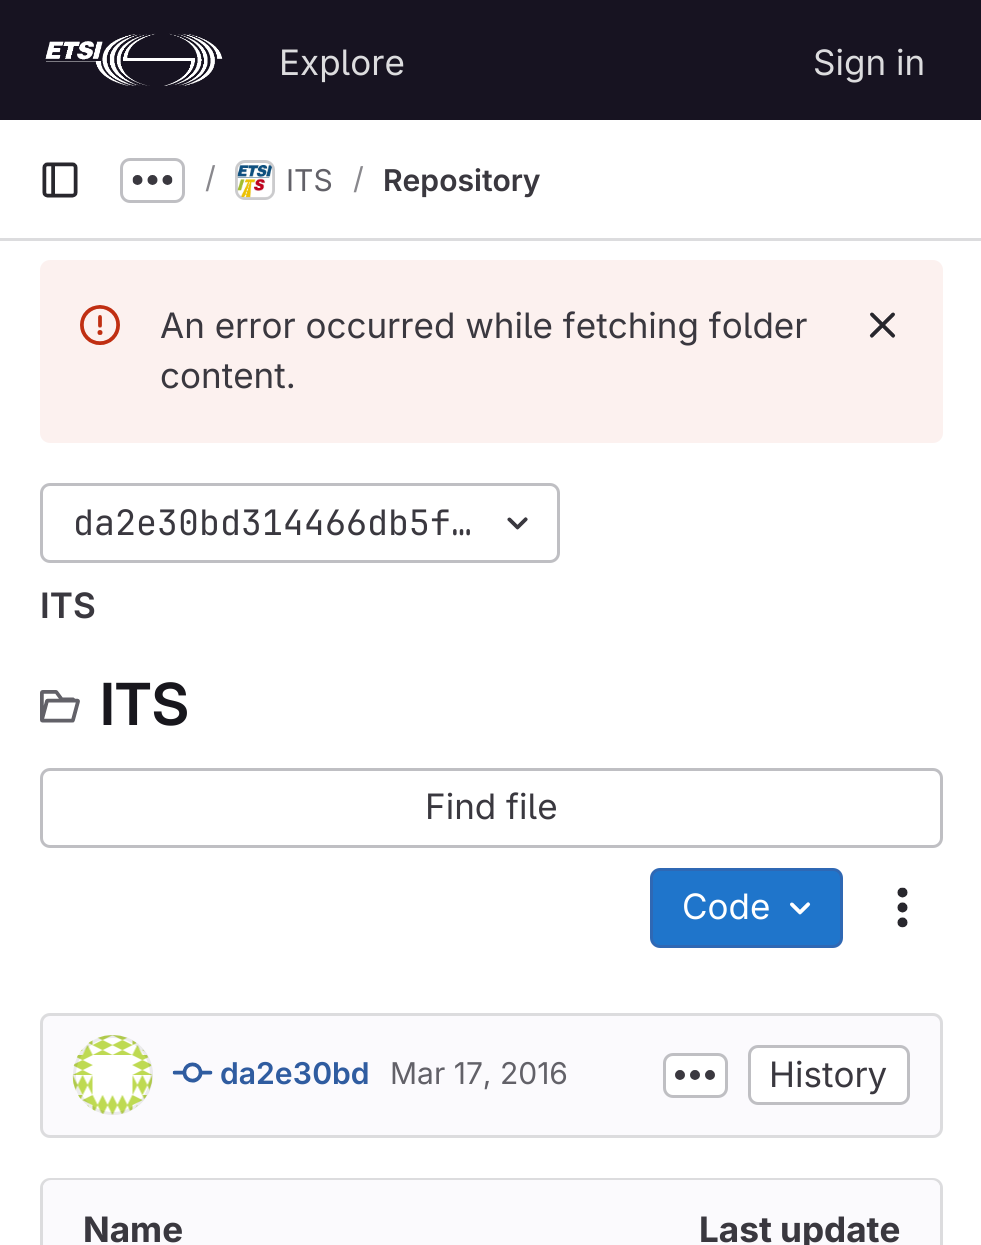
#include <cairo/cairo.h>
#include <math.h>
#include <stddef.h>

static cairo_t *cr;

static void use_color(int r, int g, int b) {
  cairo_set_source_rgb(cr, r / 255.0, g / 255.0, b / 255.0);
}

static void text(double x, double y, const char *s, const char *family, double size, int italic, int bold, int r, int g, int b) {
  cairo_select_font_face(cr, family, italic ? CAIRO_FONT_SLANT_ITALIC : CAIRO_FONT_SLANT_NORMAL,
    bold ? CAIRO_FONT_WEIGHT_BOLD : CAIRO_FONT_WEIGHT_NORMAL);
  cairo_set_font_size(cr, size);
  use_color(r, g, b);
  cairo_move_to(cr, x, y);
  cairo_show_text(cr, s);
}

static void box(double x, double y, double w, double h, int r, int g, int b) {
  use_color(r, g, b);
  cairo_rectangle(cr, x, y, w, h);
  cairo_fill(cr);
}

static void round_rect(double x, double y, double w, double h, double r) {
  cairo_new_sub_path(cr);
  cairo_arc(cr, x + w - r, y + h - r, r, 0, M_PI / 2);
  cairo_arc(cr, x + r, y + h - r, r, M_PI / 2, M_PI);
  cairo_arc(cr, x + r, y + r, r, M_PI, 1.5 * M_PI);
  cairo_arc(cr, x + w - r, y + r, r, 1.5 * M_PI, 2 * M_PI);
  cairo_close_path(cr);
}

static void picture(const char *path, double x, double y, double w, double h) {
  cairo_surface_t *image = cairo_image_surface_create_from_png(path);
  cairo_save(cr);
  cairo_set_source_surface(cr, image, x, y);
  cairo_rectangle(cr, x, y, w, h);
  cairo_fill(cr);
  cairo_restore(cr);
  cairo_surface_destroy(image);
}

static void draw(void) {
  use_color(255, 255, 255);
  cairo_paint(cr);
  box(0, 0, 981, 120, 23, 19, 33);
  picture("img_01.png", 45, 33, 178, 53);
  box(0, 238, 981, 3, 220, 220, 222);
  picture("img_02.png", 42, 162, 36, 36);
  round_rect(121.5, 159.5, 62, 42, 8.5);
  use_color(191, 191, 195);
  cairo_set_line_width(cr, 3);
  cairo_stroke(cr);
  picture("img_03.png", 132, 175, 41, 10);
  round_rect(236.5, 161.5, 37, 37, 8.5);
  use_color(220, 220, 222);
  cairo_stroke(cr);
  picture("img_04.png", 237, 165, 36, 33);
  round_rect(236.5, 161.5, 37, 37, 8.5);
  cairo_set_source_rgba(cr, 0.02, 0.02, 0.024, 0.08);
  cairo_stroke(cr);
  use_color(252, 241, 239);
  round_rect(40, 260, 903, 183, 10);
  cairo_fill(cr);
  picture("img_05.png", 80, 305, 40, 40);
  picture("img_06.png", 869, 312, 27, 26);
  round_rect(41.5, 484.5, 517, 77, 8.5);
  use_color(191, 191, 195);
  cairo_stroke(cr);
  picture("img_07.png", 507, 517, 21, 13);
  picture("img_08.png", 40, 690, 40, 33);
  round_rect(41.5, 769.5, 900, 77, 8.5);
  cairo_stroke(cr);
  use_color(31, 117, 203);
  round_rect(651.5, 869.5, 190, 77, 8.5);
  cairo_fill_preserve(cr);
  use_color(47, 104, 180);
  cairo_stroke(cr);
  picture("img_09.png", 790, 902, 21, 13);
  picture("img_10.png", 897, 887, 11, 41);
  use_color(251, 250, 253);
  round_rect(41.5, 1014.5, 900, 122, 8.5);
  cairo_fill_preserve(cr);
  use_color(220, 220, 222);
  cairo_stroke(cr);
  picture("img_11.png", 72, 1035, 81, 80);
  cairo_arc(cr, 113, 1075, 38.5, 0, 2 * M_PI);
  cairo_set_source_rgba(cr, 0.02, 0.02, 0.024, 0.08);
  cairo_stroke(cr);
  picture("img_12.png", 172, 1062, 41, 21);
  use_color(255, 255, 255);
  round_rect(664.5, 1054.5, 62, 42, 8.5);
  cairo_fill_preserve(cr);
  use_color(191, 191, 195);
  cairo_stroke(cr);
  picture("img_13.png", 675, 1070, 40, 10);
  use_color(255, 255, 255);
  round_rect(749.5, 1046.5, 159, 57, 8.5);
  cairo_fill_preserve(cr);
  use_color(191, 191, 195);
  cairo_stroke(cr);
  round_rect(41.5, 1179.5, 900, 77, 8.5);
  use_color(220, 220, 222);
  cairo_stroke(cr);
  use_color(251, 250, 253);
  cairo_new_path(cr);
  cairo_move_to(cr, 51, 1180);
  cairo_line_to(cr, 493, 1180);
  cairo_line_to(cr, 493, 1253);
  cairo_line_to(cr, 43, 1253);
  cairo_line_to(cr, 43, 1188);
  cairo_curve_to(cr, 43, 1183.5, 46.5, 1180, 51, 1180);
  cairo_close_path(cr);
  cairo_fill(cr);
  cairo_new_path(cr);
  cairo_move_to(cr, 493, 1180);
  cairo_line_to(cr, 932, 1180);
  cairo_curve_to(cr, 936.5, 1180, 940, 1183.5, 940, 1188);
  cairo_line_to(cr, 940, 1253);
  cairo_line_to(cr, 493, 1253);
  cairo_close_path(cr);
  cairo_fill(cr);
  text(279, 75, "Explore", "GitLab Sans", 35, 0, 0, 220, 220, 222);
  text(813, 75, "Sign in", "GitLab Sans", 35, 0, 0, 220, 220, 222);
  text(205, 188, "/", "GitLab Sans", 30, 0, 0, 137, 136, 141);
  text(286, 191, "ITS", "GitLab Sans", 30, 0, 0, 98, 97, 104);
  text(353, 189, "/", "GitLab Sans", 30, 0, 0, 137, 136, 141);
  text(383, 191, "Repository", "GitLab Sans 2 SemiBold", 30, 0, 0, 58, 56, 63);
  text(160, 338, "An error occurred while fetching folder", "GitLab Sans", 35, 0, 0, 58, 56, 63);
  text(160, 388, "content.", "GitLab Sans", 35, 0, 0, 58, 56, 63);
  text(73, 535, "da2e30bd314466db5f…", "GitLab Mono", 35, 0, 0, 58, 56, 63);
  text(40, 618, "ITS", "GitLab Sans 2 SemiBold", 35, 0, 0, 58, 56, 63);
  text(100, 725, "ITS", "GitLab Sans SemiBold", 58, 0, 0, 24, 23, 29);
  text(425, 819, "Find file", "GitLab Sans", 35, 0, 0, 58, 56, 63);
  text(682, 919, "Code", "GitLab Sans", 35, 0, 0, 255, 255, 255);
  text(220, 1084, "da2e30bd", "GitLab Sans 2 SemiBold", 30, 0, 0, 47, 92, 160);
  text(390, 1084, "Mar 17, 2016", "GitLab Sans", 30, 0, 0, 98, 97, 104);
  text(769, 1087, "History", "GitLab Sans", 35, 0, 0, 58, 56, 63);
  text(83, 1242, "Name", "GitLab Sans", 35, 0, 1, 58, 56, 63);
  text(699, 1242, "Last update", "GitLab Sans", 35, 0, 1, 58, 56, 63);
}

int main(void) {
  cairo_surface_t *surface = cairo_image_surface_create(CAIRO_FORMAT_RGB24, 981, 1245);
  cr = cairo_create(surface);
  cairo_font_options_t *options = cairo_font_options_create();
  cairo_font_options_set_hint_metrics(options, CAIRO_HINT_METRICS_OFF);
  cairo_font_options_set_hint_style(options, CAIRO_HINT_STYLE_NONE);
  cairo_set_font_options(cr, options);
  cairo_set_miter_limit(cr, 4);
  draw();
  cairo_surface_write_to_png(surface, "out.png");
  cairo_font_options_destroy(options);
  cairo_destroy(cr);
  cairo_surface_destroy(surface);
  return 0;
}
